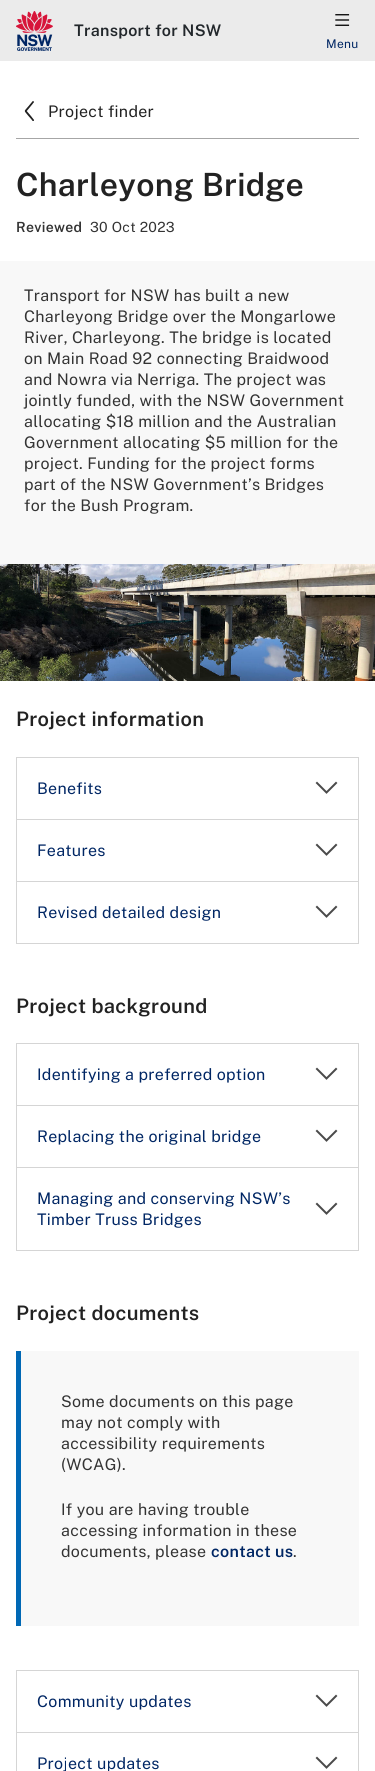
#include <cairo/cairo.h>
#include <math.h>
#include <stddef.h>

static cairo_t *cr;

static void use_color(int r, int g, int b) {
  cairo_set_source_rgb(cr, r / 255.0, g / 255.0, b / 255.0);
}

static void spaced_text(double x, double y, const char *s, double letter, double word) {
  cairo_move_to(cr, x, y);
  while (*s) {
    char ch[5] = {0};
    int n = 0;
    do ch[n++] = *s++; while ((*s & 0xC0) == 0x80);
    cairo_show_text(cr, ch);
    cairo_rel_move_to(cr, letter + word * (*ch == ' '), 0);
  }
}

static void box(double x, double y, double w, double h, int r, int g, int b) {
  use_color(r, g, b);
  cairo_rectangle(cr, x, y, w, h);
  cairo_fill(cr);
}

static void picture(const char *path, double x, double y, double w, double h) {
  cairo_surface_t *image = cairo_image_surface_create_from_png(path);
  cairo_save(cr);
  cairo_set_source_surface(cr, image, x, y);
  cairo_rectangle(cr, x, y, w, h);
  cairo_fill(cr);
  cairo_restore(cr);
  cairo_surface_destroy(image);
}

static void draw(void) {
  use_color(255, 255, 255);
  cairo_paint(cr);
  box(0, 0, 375, 61, 235, 235, 235);
  picture("img_01.png", 16, 11, 37, 40);
  picture("img_02.png", 335, 14, 15, 12);
  picture("img_03.png", 24, 101, 10, 20);
  box(16, 138, 343, 1, 166, 166, 166);
  box(0, 261, 375, 303, 248, 248, 248);
  picture("img_04.png", 0, 564, 375, 117);
  cairo_rectangle(cr, 16.5, 757.5, 342, 62);
  use_color(213, 213, 213);
  cairo_set_line_width(cr, 1);
  cairo_stroke(cr);
  cairo_new_path(cr);
  cairo_move_to(cr, 317, 783);
  cairo_line_to(cr, 326.5, 792.5);
  cairo_line_to(cr, 336, 783);
  use_color(74, 74, 74);
  cairo_set_line_width(cr, 2);
  cairo_set_line_cap(cr, CAIRO_LINE_CAP_SQUARE);
  cairo_stroke(cr);
  cairo_rectangle(cr, 16.5, 819.5, 342, 62);
  use_color(213, 213, 213);
  cairo_set_line_width(cr, 1);
  cairo_set_line_cap(cr, CAIRO_LINE_CAP_BUTT);
  cairo_stroke(cr);
  cairo_new_path(cr);
  cairo_move_to(cr, 317, 845);
  cairo_line_to(cr, 326.5, 854.5);
  cairo_line_to(cr, 336, 845);
  use_color(74, 74, 74);
  cairo_set_line_width(cr, 2);
  cairo_set_line_cap(cr, CAIRO_LINE_CAP_SQUARE);
  cairo_stroke(cr);
  cairo_rectangle(cr, 16.5, 881.5, 342, 62);
  use_color(213, 213, 213);
  cairo_set_line_width(cr, 1);
  cairo_set_line_cap(cr, CAIRO_LINE_CAP_BUTT);
  cairo_stroke(cr);
  cairo_new_path(cr);
  cairo_move_to(cr, 317, 907);
  cairo_line_to(cr, 326.5, 916.5);
  cairo_line_to(cr, 336, 907);
  use_color(74, 74, 74);
  cairo_set_line_width(cr, 2);
  cairo_set_line_cap(cr, CAIRO_LINE_CAP_SQUARE);
  cairo_stroke(cr);
  cairo_rectangle(cr, 16.5, 1043.5, 342, 62);
  use_color(213, 213, 213);
  cairo_set_line_width(cr, 1);
  cairo_set_line_cap(cr, CAIRO_LINE_CAP_BUTT);
  cairo_stroke(cr);
  cairo_new_path(cr);
  cairo_move_to(cr, 317, 1069);
  cairo_line_to(cr, 326.5, 1078.5);
  cairo_line_to(cr, 336, 1069);
  use_color(74, 74, 74);
  cairo_set_line_width(cr, 2);
  cairo_set_line_cap(cr, CAIRO_LINE_CAP_SQUARE);
  cairo_stroke(cr);
  cairo_rectangle(cr, 16.5, 1105.5, 342, 62);
  use_color(213, 213, 213);
  cairo_set_line_width(cr, 1);
  cairo_set_line_cap(cr, CAIRO_LINE_CAP_BUTT);
  cairo_stroke(cr);
  cairo_new_path(cr);
  cairo_move_to(cr, 317, 1131);
  cairo_line_to(cr, 326.5, 1140.5);
  cairo_line_to(cr, 336, 1131);
  use_color(74, 74, 74);
  cairo_set_line_width(cr, 2);
  cairo_set_line_cap(cr, CAIRO_LINE_CAP_SQUARE);
  cairo_stroke(cr);
  cairo_rectangle(cr, 16.5, 1167.5, 342, 83);
  use_color(213, 213, 213);
  cairo_set_line_width(cr, 1);
  cairo_set_line_cap(cr, CAIRO_LINE_CAP_BUTT);
  cairo_stroke(cr);
  cairo_new_path(cr);
  cairo_move_to(cr, 317, 1204);
  cairo_line_to(cr, 326.5, 1213.5);
  cairo_line_to(cr, 336, 1204);
  use_color(74, 74, 74);
  cairo_set_line_width(cr, 2);
  cairo_set_line_cap(cr, CAIRO_LINE_CAP_SQUARE);
  cairo_stroke(cr);
  box(21, 1351, 338, 275, 248, 248, 248);
  box(16, 1351, 5, 275, 0, 104, 181);
  cairo_rectangle(cr, 16.5, 1670.5, 342, 62);
  use_color(213, 213, 213);
  cairo_set_line_width(cr, 1);
  cairo_set_line_cap(cr, CAIRO_LINE_CAP_BUTT);
  cairo_stroke(cr);
  cairo_new_path(cr);
  cairo_move_to(cr, 317, 1696);
  cairo_line_to(cr, 326.5, 1705.5);
  cairo_line_to(cr, 336, 1696);
  use_color(74, 74, 74);
  cairo_set_line_width(cr, 2);
  cairo_set_line_cap(cr, CAIRO_LINE_CAP_SQUARE);
  cairo_stroke(cr);
  cairo_rectangle(cr, 16.5, 1732.5, 342, 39);
  use_color(213, 213, 213);
  cairo_set_line_width(cr, 1);
  cairo_set_line_cap(cr, CAIRO_LINE_CAP_BUTT);
  cairo_stroke(cr);
  cairo_new_path(cr);
  cairo_move_to(cr, 317, 1758);
  cairo_line_to(cr, 326.5, 1767.5);
  cairo_line_to(cr, 336, 1758);
  use_color(74, 74, 74);
  cairo_set_line_width(cr, 2);
  cairo_set_line_cap(cr, CAIRO_LINE_CAP_SQUARE);
  cairo_stroke(cr);
  cairo_select_font_face(cr, "Public Sans SemiBold", CAIRO_FONT_SLANT_NORMAL, CAIRO_FONT_WEIGHT_NORMAL);
  cairo_set_font_size(cr, 16);
  use_color(34, 39, 43);
  spaced_text(74, 36, "Transport for NSW", 0.3, 0);
  cairo_select_font_face(cr, "Public Sans", CAIRO_FONT_SLANT_NORMAL, CAIRO_FONT_WEIGHT_NORMAL);
  cairo_set_font_size(cr, 12);
  use_color(0, 38, 100);
  spaced_text(326, 48, "Menu", 0.3, 0);
  cairo_set_font_size(cr, 16);
  use_color(34, 34, 34);
  spaced_text(48, 117, "Project finder", 0.3, 0);
  cairo_select_font_face(cr, "Public Sans SemiBold", CAIRO_FONT_SLANT_NORMAL, CAIRO_FONT_WEIGHT_NORMAL);
  cairo_set_font_size(cr, 32);
  spaced_text(16, 196, "Charleyong Bridge", 0.3, 0);
  cairo_set_font_size(cr, 14);
  use_color(51, 51, 51);
  spaced_text(16, 232, "Reviewed", 0.3, 0);
  cairo_select_font_face(cr, "Public Sans", CAIRO_FONT_SLANT_NORMAL, CAIRO_FONT_WEIGHT_NORMAL);
  spaced_text(90, 232, "30 Oct 2023", 0.3, 0);
  cairo_set_font_size(cr, 16);
  spaced_text(24, 301, "Transport for NSW has built a new", 0.3, 0);
  spaced_text(24, 322, "Charleyong Bridge over the Mongarlowe", 0.3, 0);
  spaced_text(24, 343, "River, Charleyong. The bridge is located", 0.3, 0);
  spaced_text(24, 364, "on Main Road 92 connecting Braidwood", 0.3, 0);
  spaced_text(24, 385, "and Nowra via Nerriga. The project was", 0.3, 0);
  spaced_text(24, 406, "jointly funded, with the NSW Government", 0.3, 0);
  spaced_text(24, 427, "allocating $18 million and the Australian", 0.3, 0);
  spaced_text(24, 448, "Government allocating $5 million for the", 0.3, 0);
  spaced_text(24, 469, "project. Funding for the project forms", 0.3, 0);
  spaced_text(24, 490, "part of the NSW Government’s Bridges", 0.3, 0);
  spaced_text(24, 511, "for the Bush Program.", 0.3, 0);
  cairo_select_font_face(cr, "Public Sans SemiBold", CAIRO_FONT_SLANT_NORMAL, CAIRO_FONT_WEIGHT_NORMAL);
  cairo_set_font_size(cr, 20);
  use_color(34, 34, 34);
  spaced_text(16, 726, "Project information", 0.3, 0);
  cairo_select_font_face(cr, "Public Sans", CAIRO_FONT_SLANT_NORMAL, CAIRO_FONT_WEIGHT_NORMAL);
  cairo_set_font_size(cr, 16);
  use_color(0, 38, 100);
  spaced_text(37, 794, "Benefits", 0.3, 0);
  spaced_text(37, 856, "Features", 0.3, 0);
  spaced_text(37, 918, "Revised detailed design", 0.3, 0);
  cairo_select_font_face(cr, "Public Sans SemiBold", CAIRO_FONT_SLANT_NORMAL, CAIRO_FONT_WEIGHT_NORMAL);
  cairo_set_font_size(cr, 20);
  use_color(34, 34, 34);
  spaced_text(16, 1013, "Project background", 0.3, 0);
  cairo_select_font_face(cr, "Public Sans", CAIRO_FONT_SLANT_NORMAL, CAIRO_FONT_WEIGHT_NORMAL);
  cairo_set_font_size(cr, 16);
  use_color(0, 38, 100);
  spaced_text(37, 1080, "Identifying a preferred option", 0.3, 0);
  spaced_text(37, 1142, "Replacing the original bridge", 0.3, 0);
  spaced_text(37, 1204, "Managing and conserving NSW’s", 0.3, 0);
  spaced_text(37, 1225, "Timber Truss Bridges", 0.3, 0);
  cairo_select_font_face(cr, "Public Sans SemiBold", CAIRO_FONT_SLANT_NORMAL, CAIRO_FONT_WEIGHT_NORMAL);
  cairo_set_font_size(cr, 20);
  use_color(34, 34, 34);
  spaced_text(16, 1320, "Project documents", 0.3, 0);
  cairo_select_font_face(cr, "Public Sans", CAIRO_FONT_SLANT_NORMAL, CAIRO_FONT_WEIGHT_NORMAL);
  cairo_set_font_size(cr, 16);
  use_color(51, 51, 51);
  spaced_text(61, 1407, "Some documents on this page", 0.3, 0);
  spaced_text(61, 1428, "may not comply with", 0.3, 0);
  spaced_text(61, 1449, "accessibility requirements", 0.3, 0);
  spaced_text(61, 1470, "(WCAG).", 0.3, 0);
  spaced_text(61, 1515, "If you are having trouble", 0.3, 0);
  spaced_text(61, 1536, "accessing information in these", 0.3, 0);
  spaced_text(61, 1557, "documents, please", 0.3, 0);
  cairo_select_font_face(cr, "Public Sans SemiBold", CAIRO_FONT_SLANT_NORMAL, CAIRO_FONT_WEIGHT_NORMAL);
  use_color(0, 38, 100);
  spaced_text(211, 1557, "contact us", 0.3, 0);
  cairo_select_font_face(cr, "Public Sans", CAIRO_FONT_SLANT_NORMAL, CAIRO_FONT_WEIGHT_NORMAL);
  use_color(51, 51, 51);
  spaced_text(293, 1557, ".", 0.3, 0);
  use_color(0, 38, 100);
  spaced_text(37, 1707, "Community updates", 0.3, 0);
  spaced_text(37, 1769, "Project updates", 0.3, 0);
}

int main(void) {
  cairo_surface_t *surface = cairo_image_surface_create(CAIRO_FORMAT_RGB24, 375, 1771);
  cr = cairo_create(surface);
  cairo_font_options_t *options = cairo_font_options_create();
  cairo_font_options_set_hint_metrics(options, CAIRO_HINT_METRICS_OFF);
  cairo_font_options_set_hint_style(options, CAIRO_HINT_STYLE_NONE);
  cairo_set_font_options(cr, options);
  cairo_set_miter_limit(cr, 4);
  draw();
  cairo_surface_write_to_png(surface, "out.png");
  cairo_font_options_destroy(options);
  cairo_destroy(cr);
  cairo_surface_destroy(surface);
  return 0;
}
